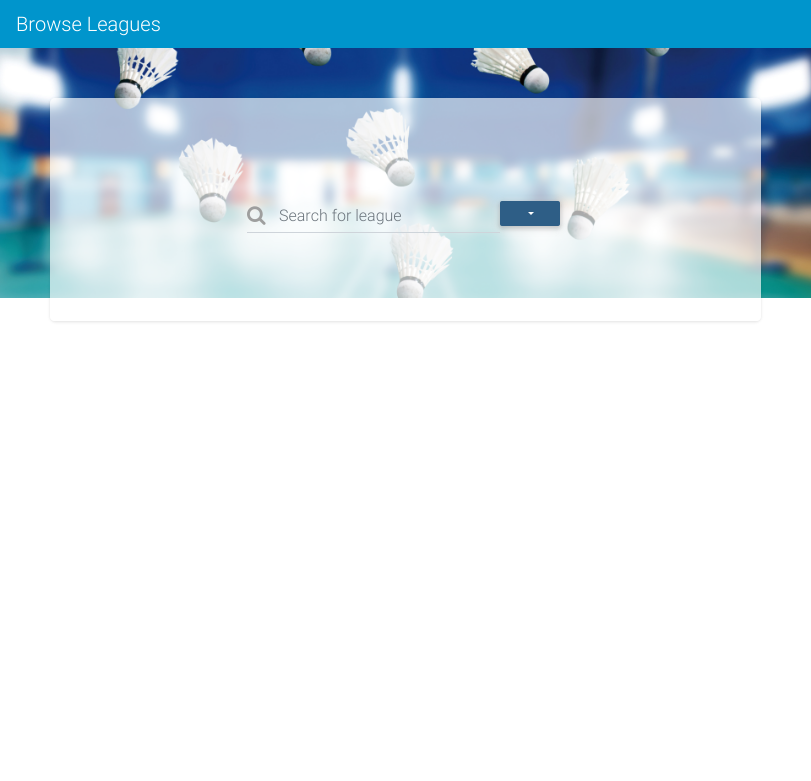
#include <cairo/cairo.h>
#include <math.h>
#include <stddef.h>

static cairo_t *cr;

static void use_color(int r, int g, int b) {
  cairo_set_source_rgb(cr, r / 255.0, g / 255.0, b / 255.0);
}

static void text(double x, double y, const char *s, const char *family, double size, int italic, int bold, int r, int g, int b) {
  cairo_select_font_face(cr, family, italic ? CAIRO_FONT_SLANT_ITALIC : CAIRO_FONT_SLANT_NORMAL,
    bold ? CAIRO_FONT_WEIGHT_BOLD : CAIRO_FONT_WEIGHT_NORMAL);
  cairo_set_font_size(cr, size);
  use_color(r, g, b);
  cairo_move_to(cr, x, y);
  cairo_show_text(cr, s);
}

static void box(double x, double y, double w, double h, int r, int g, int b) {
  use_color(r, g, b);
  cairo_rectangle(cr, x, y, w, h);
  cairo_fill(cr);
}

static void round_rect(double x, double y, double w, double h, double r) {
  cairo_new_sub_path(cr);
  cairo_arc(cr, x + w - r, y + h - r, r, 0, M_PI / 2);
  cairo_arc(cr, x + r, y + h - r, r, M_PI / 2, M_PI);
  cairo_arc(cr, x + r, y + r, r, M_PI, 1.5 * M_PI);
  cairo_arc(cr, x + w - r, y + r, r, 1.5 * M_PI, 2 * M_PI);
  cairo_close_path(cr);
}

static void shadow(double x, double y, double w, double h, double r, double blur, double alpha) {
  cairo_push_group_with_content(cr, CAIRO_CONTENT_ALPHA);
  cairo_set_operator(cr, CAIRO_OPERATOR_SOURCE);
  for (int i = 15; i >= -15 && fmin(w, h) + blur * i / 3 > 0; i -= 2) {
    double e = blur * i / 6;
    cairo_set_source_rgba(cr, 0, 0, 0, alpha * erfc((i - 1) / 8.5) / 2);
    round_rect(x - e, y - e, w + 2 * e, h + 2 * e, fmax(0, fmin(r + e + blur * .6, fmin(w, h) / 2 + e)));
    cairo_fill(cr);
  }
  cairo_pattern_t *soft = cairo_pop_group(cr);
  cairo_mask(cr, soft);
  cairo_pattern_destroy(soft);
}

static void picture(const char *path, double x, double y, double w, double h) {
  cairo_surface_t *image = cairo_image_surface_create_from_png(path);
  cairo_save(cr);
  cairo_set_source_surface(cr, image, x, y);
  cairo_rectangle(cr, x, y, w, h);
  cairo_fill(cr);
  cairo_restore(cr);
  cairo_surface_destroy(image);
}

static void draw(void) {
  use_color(255, 255, 255);
  cairo_paint(cr);
  box(0, 0, 811, 48, 0, 149, 204);
  picture("img_01.png", 0, 48, 811, 250);
  cairo_save(cr);
  cairo_set_fill_rule(cr, CAIRO_FILL_RULE_EVEN_ODD);
  cairo_new_path(cr);
  cairo_move_to(cr, 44, 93);
  cairo_line_to(cr, 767, 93);
  cairo_line_to(cr, 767, 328);
  cairo_line_to(cr, 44, 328);
  cairo_close_path(cr);
  cairo_move_to(cr, 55, 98);
  cairo_line_to(cr, 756, 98);
  cairo_curve_to(cr, 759, 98, 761, 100, 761, 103);
  cairo_line_to(cr, 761, 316);
  cairo_curve_to(cr, 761, 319, 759, 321, 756, 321);
  cairo_line_to(cr, 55, 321);
  cairo_curve_to(cr, 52, 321, 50, 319, 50, 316);
  cairo_line_to(cr, 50, 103);
  cairo_curve_to(cr, 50, 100, 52, 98, 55, 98);
  cairo_close_path(cr);
  cairo_clip(cr);
  use_color(0, 0, 0);
  shadow(50, 99, 711, 223, 5, 1.5, 0.12);
  cairo_restore(cr);
  cairo_set_source_rgba(cr, 1, 1, 1, 0.66);
  round_rect(50, 98, 711, 223, 5);
  cairo_fill(cr);
  picture("img_02.png", 247, 206, 19, 19);
  use_color(0, 0, 0);
  shadow(500, 203, 60, 25, 2, 5, 0.12);
  shadow(500, 203, 60, 25, 2, 2.5, 0.16);
  box(247, 232, 253, 1, 206, 212, 218);
  use_color(46, 94, 134);
  round_rect(500, 201, 60, 25, 2);
  cairo_fill(cr);
  use_color(255, 255, 255);
  cairo_new_path(cr);
  cairo_move_to(cr, 528, 212);
  cairo_line_to(cr, 534, 212);
  cairo_line_to(cr, 531, 215);
  cairo_close_path(cr);
  cairo_fill(cr);
  text(16, 31, "Browse Leagues", "Roboto Light", 20, 0, 0, 255, 255, 255);
  text(279, 221, "Search for league", "Roboto Light", 16, 0, 0, 108, 117, 125);
}

int main(void) {
  cairo_surface_t *surface = cairo_image_surface_create(CAIRO_FORMAT_RGB24, 811, 781);
  cr = cairo_create(surface);
  cairo_font_options_t *options = cairo_font_options_create();
  cairo_font_options_set_hint_metrics(options, CAIRO_HINT_METRICS_OFF);
  cairo_font_options_set_hint_style(options, CAIRO_HINT_STYLE_NONE);
  cairo_set_font_options(cr, options);
  cairo_set_miter_limit(cr, 4);
  draw();
  cairo_surface_write_to_png(surface, "out.png");
  cairo_font_options_destroy(options);
  cairo_destroy(cr);
  cairo_surface_destroy(surface);
  return 0;
}
